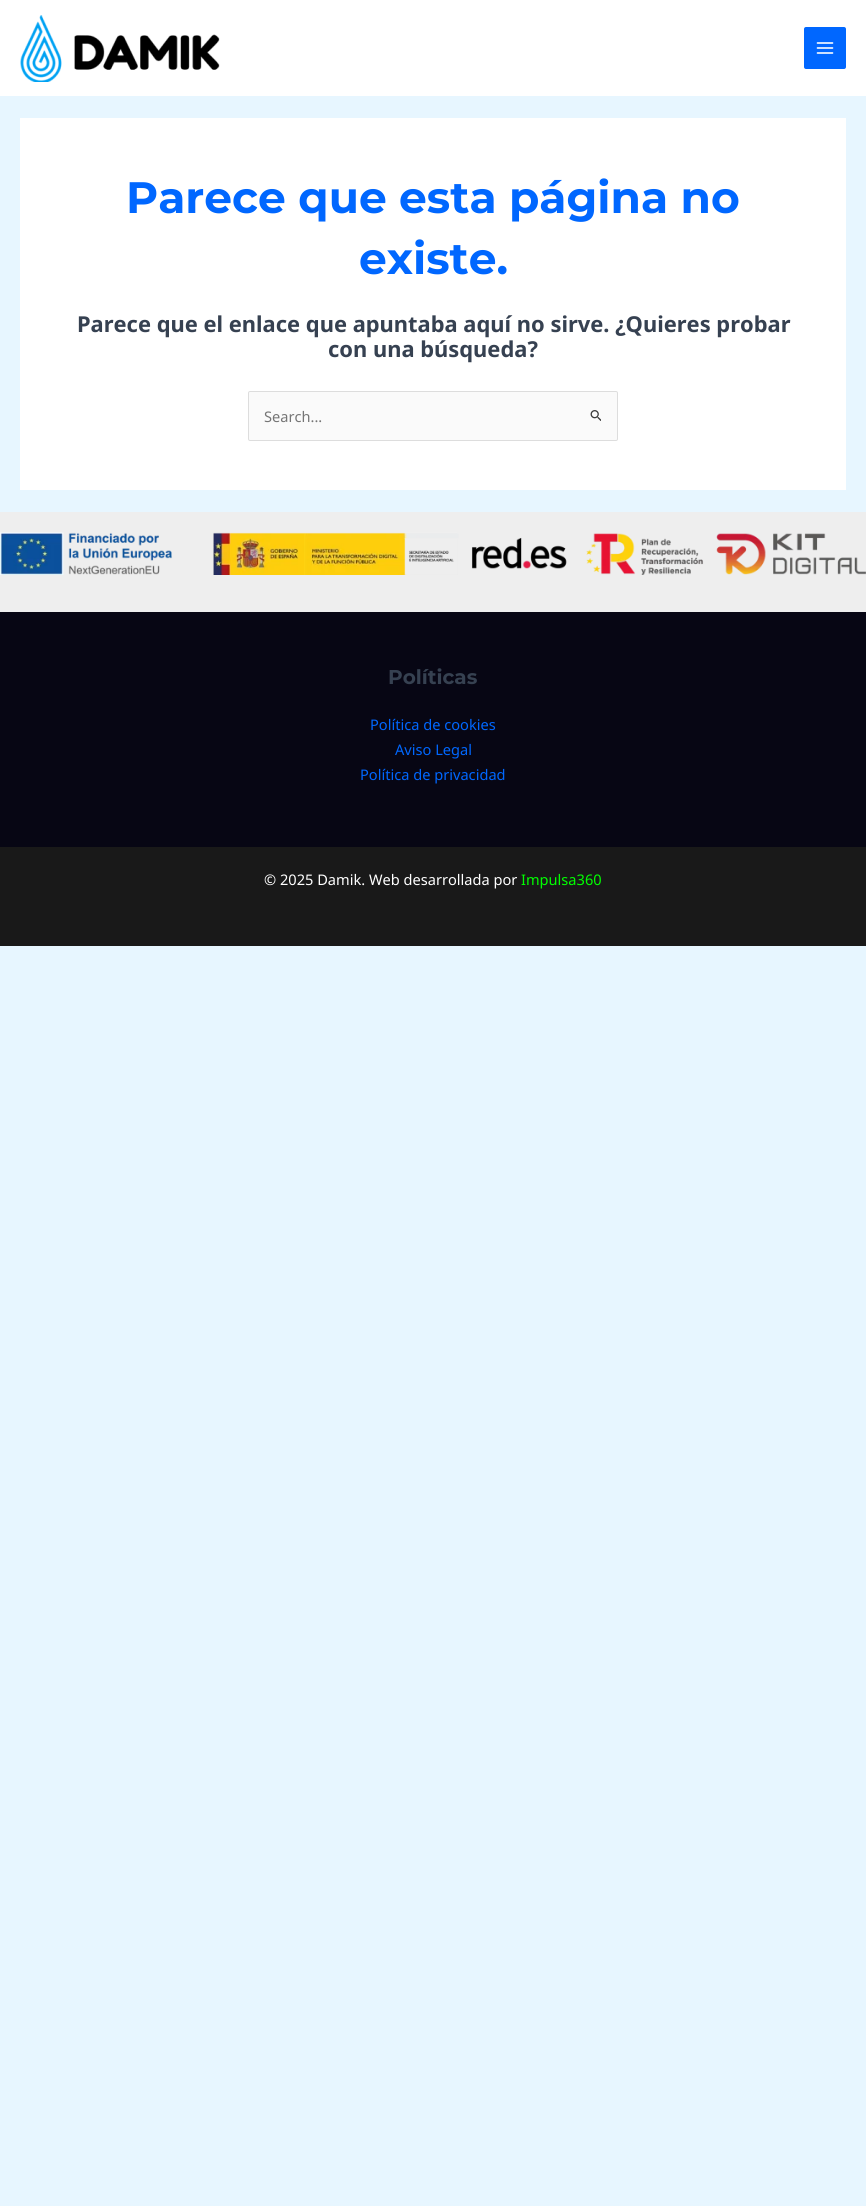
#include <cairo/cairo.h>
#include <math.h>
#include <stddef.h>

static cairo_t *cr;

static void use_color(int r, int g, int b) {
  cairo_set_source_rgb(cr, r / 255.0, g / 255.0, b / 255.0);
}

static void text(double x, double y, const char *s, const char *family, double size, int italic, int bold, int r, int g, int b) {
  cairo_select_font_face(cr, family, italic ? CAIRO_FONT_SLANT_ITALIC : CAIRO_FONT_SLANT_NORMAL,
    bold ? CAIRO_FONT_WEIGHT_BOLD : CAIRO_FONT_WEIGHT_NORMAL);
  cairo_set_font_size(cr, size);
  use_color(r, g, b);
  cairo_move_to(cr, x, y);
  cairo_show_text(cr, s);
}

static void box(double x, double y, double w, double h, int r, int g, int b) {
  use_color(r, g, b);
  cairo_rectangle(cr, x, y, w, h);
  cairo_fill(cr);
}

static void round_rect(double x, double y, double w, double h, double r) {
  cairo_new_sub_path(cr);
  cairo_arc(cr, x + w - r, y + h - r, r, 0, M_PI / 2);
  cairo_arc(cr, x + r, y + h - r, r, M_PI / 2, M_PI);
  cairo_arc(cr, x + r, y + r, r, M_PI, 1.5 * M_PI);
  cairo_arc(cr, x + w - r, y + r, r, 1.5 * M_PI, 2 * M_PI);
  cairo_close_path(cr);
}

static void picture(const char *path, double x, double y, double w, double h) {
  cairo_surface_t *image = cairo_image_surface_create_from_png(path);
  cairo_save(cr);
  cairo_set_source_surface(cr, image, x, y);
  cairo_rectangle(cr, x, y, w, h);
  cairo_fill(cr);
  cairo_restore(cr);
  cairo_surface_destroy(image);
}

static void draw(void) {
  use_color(231, 246, 255);
  cairo_paint(cr);
  box(0, 0, 866, 96, 255, 255, 255);
  picture("img_01.png", 20, 15, 200, 67);
  use_color(0, 103, 255);
  round_rect(804, 27, 42, 42, 2);
  cairo_fill(cr);
  picture("img_02.png", 816, 42, 18, 12);
  box(20, 118, 826, 372, 255, 255, 255);
  use_color(250, 250, 250);
  round_rect(248.5, 391.5, 369, 49, 1.5);
  cairo_fill_preserve(cr);
  use_color(221, 221, 221);
  cairo_set_line_width(cr, 1);
  cairo_stroke(cr);
  picture("img_03.png", 590, 410, 11, 11);
  box(0, 512, 866, 100, 238, 238, 238);
  picture("img_04.png", 0, 532, 866, 43);
  box(0, 612, 866, 235, 7, 6, 20);
  box(0, 847, 866, 99, 25, 25, 25);
  text(126, 213, "Parece que esta página no", "Montserrat Thin", 44, 0, 0, 0, 103, 255);
  text(359, 274, "existe.", "Montserrat Thin", 44, 0, 0, 0, 103, 255);
  text(77, 332, "Parece que el enlace que apuntaba aquí no sirve. ¿Quieres probar", "Noto Sans", 21.9, 0, 1, 54, 65, 81);
  text(328, 357, "con una búsqueda?", "Noto Sans", 21.9, 0, 1, 54, 65, 81);
  text(264, 422, "Search...", "Noto Sans", 14.6, 0, 0, 117, 117, 117);
  text(388, 684, "Políticas", "Montserrat Thin", 20, 0, 0, 54, 65, 81);
  text(370, 730, "Política de cookies", "Noto Sans", 14.6, 0, 0, 0, 103, 255);
  text(395, 755, "Aviso Legal", "Noto Sans", 14.6, 0, 0, 0, 103, 255);
  text(360, 780, "Política de privacidad", "Noto Sans", 14.6, 0, 0, 0, 103, 255);
  text(264, 885, "© 2025 Damik. Web desarrollada por", "Noto Sans", 14.6, 0, 0, 255, 255, 255);
  text(521, 885, "Impulsa360", "Noto Sans", 14.6, 0, 0, 0, 255, 0);
}

int main(void) {
  cairo_surface_t *surface = cairo_image_surface_create(CAIRO_FORMAT_RGB24, 866, 2206);
  cr = cairo_create(surface);
  cairo_font_options_t *options = cairo_font_options_create();
  cairo_font_options_set_hint_metrics(options, CAIRO_HINT_METRICS_OFF);
  cairo_font_options_set_hint_style(options, CAIRO_HINT_STYLE_NONE);
  cairo_set_font_options(cr, options);
  cairo_set_miter_limit(cr, 4);
  draw();
  cairo_surface_write_to_png(surface, "out.png");
  cairo_font_options_destroy(options);
  cairo_destroy(cr);
  cairo_surface_destroy(surface);
  return 0;
}
